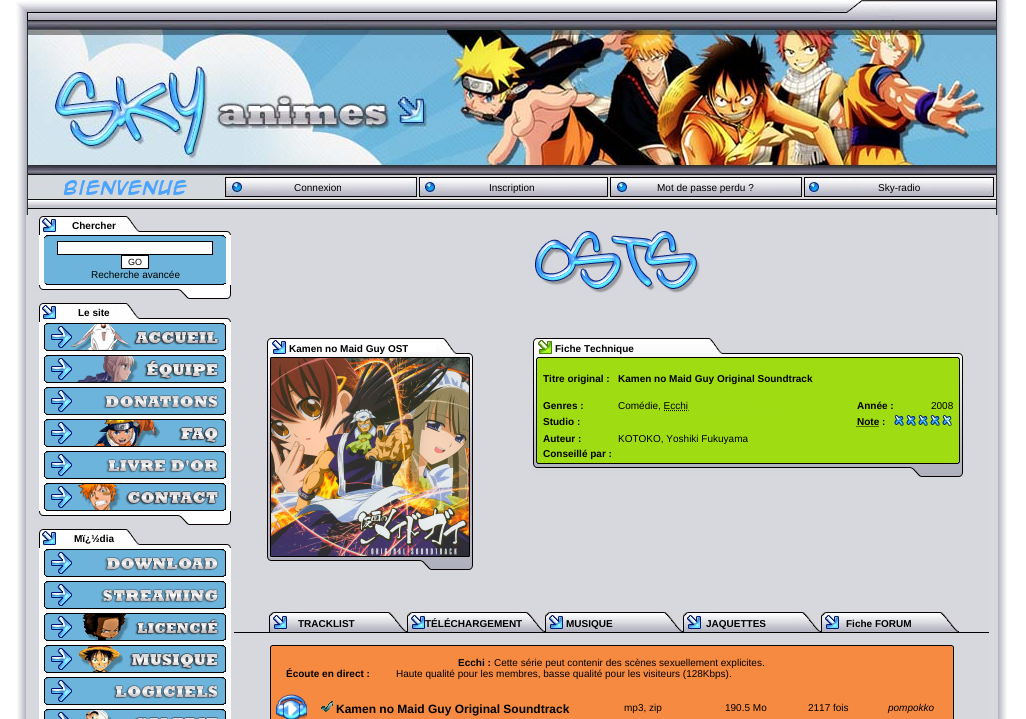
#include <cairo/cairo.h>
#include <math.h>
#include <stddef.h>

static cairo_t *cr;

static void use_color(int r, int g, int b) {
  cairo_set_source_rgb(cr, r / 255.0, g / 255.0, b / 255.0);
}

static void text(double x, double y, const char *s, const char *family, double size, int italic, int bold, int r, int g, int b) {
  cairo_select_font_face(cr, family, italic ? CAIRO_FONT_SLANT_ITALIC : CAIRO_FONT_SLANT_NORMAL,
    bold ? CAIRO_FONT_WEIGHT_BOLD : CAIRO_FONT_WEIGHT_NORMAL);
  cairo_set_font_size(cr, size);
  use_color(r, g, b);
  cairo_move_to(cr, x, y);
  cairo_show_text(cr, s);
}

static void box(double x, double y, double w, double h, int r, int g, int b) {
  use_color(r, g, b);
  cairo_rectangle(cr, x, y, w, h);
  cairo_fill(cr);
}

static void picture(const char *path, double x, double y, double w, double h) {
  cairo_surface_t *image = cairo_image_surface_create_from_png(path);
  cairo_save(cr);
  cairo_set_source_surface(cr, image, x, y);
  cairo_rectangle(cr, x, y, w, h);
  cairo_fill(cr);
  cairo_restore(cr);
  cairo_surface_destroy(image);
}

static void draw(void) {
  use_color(255, 255, 255);
  cairo_paint(cr);
  picture("img_01.png", 17, 0, 990, 719);
  picture("img_02.png", 16, 0, 987, 21);
  picture("img_03.png", 28, 21, 968, 153);
  picture("img_04.png", 28, 174, 968, 35);
  picture("img_05.png", 63, 180, 124, 15);
  box(26, 215, 2, 504, 215, 216, 221);
  picture("img_06.png", 35, 215, 196, 20);
  box(39, 235, 192, 50, 251, 251, 251);
  picture("img_07.png", 44, 235, 182, 3);
  box(44, 238, 182, 45, 108, 180, 219);
  use_color(255, 255, 255);
  cairo_rectangle(cr, 57.5, 241.5, 155, 13);
  cairo_fill_preserve(cr);
  use_color(0, 0, 0);
  cairo_set_line_width(cr, 1);
  cairo_stroke(cr);
  use_color(255, 255, 255);
  cairo_rectangle(cr, 121.5, 255.5, 27, 13);
  cairo_fill_preserve(cr);
  use_color(0, 0, 0);
  cairo_stroke(cr);
  picture("img_08.png", 45, 283, 181, 2);
  picture("img_09.png", 34, 285, 197, 15);
  picture("img_06.png", 35, 302, 196, 20);
  box(39, 322, 192, 189, 251, 251, 251);
  picture("img_10.png", 44, 323, 182, 28);
  picture("img_11.png", 71, 324, 148, 26);
  picture("img_12.png", 133, 331, 86, 14);
  picture("img_10.png", 44, 355, 182, 28);
  picture("img_13.png", 77, 356, 142, 26);
  picture("img_14.png", 144, 360, 75, 20);
  picture("img_10.png", 44, 387, 182, 28);
  picture("img_15.png", 103, 395, 116, 14);
  picture("img_10.png", 44, 419, 182, 28);
  picture("img_16.png", 94, 420, 125, 26);
  picture("img_17.png", 178, 427, 41, 17);
  picture("img_10.png", 44, 451, 182, 28);
  picture("img_18.png", 106, 459, 113, 14);
  picture("img_10.png", 44, 483, 182, 28);
  picture("img_19.png", 77, 484, 142, 26);
  picture("img_20.png", 125, 491, 94, 14);
  picture("img_09.png", 34, 511, 197, 15);
  picture("img_06.png", 35, 528, 196, 20);
  box(39, 548, 192, 171, 251, 251, 251);
  picture("img_10.png", 44, 549, 182, 28);
  picture("img_21.png", 104, 557, 115, 14);
  picture("img_10.png", 44, 581, 182, 28);
  picture("img_22.png", 100, 589, 119, 14);
  picture("img_10.png", 44, 613, 182, 28);
  picture("img_23.png", 82, 614, 137, 26);
  picture("img_24.png", 135, 619, 84, 16);
  picture("img_10.png", 44, 645, 182, 28);
  picture("img_25.png", 78, 646, 141, 26);
  picture("img_26.png", 129, 653, 90, 17);
  picture("img_10.png", 44, 677, 182, 28);
  picture("img_27.png", 113, 685, 106, 14);
  picture("img_28.png", 44, 709, 182, 10);
  picture("img_29.png", 86, 710, 133, 9);
  picture("img_30.png", 135, 717, 84, 2);
  box(996, 215, 2, 504, 215, 216, 221);
  picture("img_31.png", 529, 228, 171, 65);
  picture("img_32.png", 267, 338, 206, 232);
  picture("img_33.png", 271, 358, 198, 198);
  picture("img_34.png", 533, 338, 430, 21);
  picture("img_35.png", 533, 359, 430, 103);
  cairo_new_path(cr);
  cairo_move_to(cr, 664, 410.5);
  cairo_line_to(cr, 688.5, 410.5);
  use_color(0, 0, 0);
  cairo_set_dash(cr, (double[]){1, 1}, 2, 0);
  cairo_stroke(cr);
  cairo_new_path(cr);
  cairo_move_to(cr, 856.5, 426.5);
  cairo_line_to(cr, 879, 426.5);
  cairo_stroke(cr);
  picture("img_36.png", 894, 415, 10, 11);
  picture("img_36.png", 906, 415, 10, 11);
  picture("img_36.png", 918, 415, 10, 11);
  picture("img_36.png", 930, 415, 10, 11);
  picture("img_37.png", 942, 415, 10, 11);
  picture("img_38.png", 533, 462, 430, 15);
  picture("img_39.png", 234, 612, 755, 22);
  picture("img_40.png", 270, 645, 684, 2);
  picture("img_41.png", 270, 647, 684, 21);
  picture("img_42.png", 270, 668, 684, 22);
  picture("img_43.png", 270, 690, 684, 29);
  picture("img_44.png", 276, 694, 31, 25);
  picture("img_45.png", 321, 701, 12, 11);
  text(294, 191, "Connexion", "Liberation Sans", 10, 0, 0, 0, 0, 0);
  text(489, 191, "Inscription", "Liberation Sans", 10, 0, 0, 0, 0, 0);
  text(657, 191, "Mot de passe perdu ?", "Liberation Sans", 10, 0, 0, 0, 0, 0);
  text(878, 191, "Sky-radio", "Liberation Sans", 10, 0, 0, 0, 0, 0);
  text(72, 229, "Chercher", "Liberation Sans", 10, 0, 1, 0, 0, 0);
  text(128, 265, "GO", "Liberation Sans", 9, 0, 0, 0, 0, 0);
  text(91, 278, "Recherche avancée", "Liberation Sans", 10, 0, 0, 0, 0, 0);
  text(78, 316, "Le site", "Liberation Sans", 10, 0, 1, 0, 0, 0);
  text(74, 542, "Mï¿½dia", "Liberation Sans", 10, 0, 1, 0, 0, 0);
  text(289, 352, "Kamen no Maid Guy OST", "Liberation Sans", 10, 0, 1, 0, 0, 0);
  text(555, 352, "Fiche Technique", "Liberation Sans", 10, 0, 1, 0, 0, 0);
  text(543, 382, "Titre original :", "Liberation Sans", 10, 0, 1, 0, 0, 0);
  text(618, 382, "Kamen no Maid Guy Original Soundtrack", "Liberation Sans", 10, 0, 1, 0, 0, 0);
  text(543, 409, "Genres :", "Liberation Sans", 10, 0, 1, 0, 0, 0);
  text(618, 409, "Comédie, Ecchi", "Liberation Sans", 10, 0, 0, 0, 0, 0);
  text(857, 409, "Année :", "Liberation Sans", 10, 0, 1, 0, 0, 0);
  text(931, 409, "2008", "Liberation Sans", 10, 0, 0, 0, 0, 0);
  text(543, 425, "Studio :", "Liberation Sans", 10, 0, 1, 0, 0, 0);
  text(857, 425, "Note :", "Liberation Sans", 10, 0, 1, 0, 0, 0);
  text(543, 442, "Auteur :", "Liberation Sans", 10, 0, 1, 0, 0, 0);
  text(618, 442, "KOTOKO, Yoshiki Fukuyama", "Liberation Sans", 10, 0, 0, 0, 0, 0);
  text(543, 457, "Conseillé par :", "Liberation Sans", 10, 0, 1, 0, 0, 0);
  text(298, 627, "TRACKLIST", "Liberation Sans", 10, 0, 1, 0, 0, 0);
  text(425, 627, "TÉLÉCHARGEMENT", "Liberation Sans", 10, 0, 1, 0, 0, 0);
  text(566, 627, "MUSIQUE", "Liberation Sans", 10, 0, 1, 0, 0, 0);
  text(706, 627, "JAQUETTES", "Liberation Sans", 10, 0, 1, 0, 0, 0);
  text(846, 627, "Fiche FORUM", "Liberation Sans", 10, 0, 1, 0, 0, 0);
  text(458, 666, "Ecchi :", "Liberation Sans", 10, 0, 1, 0, 0, 0);
  text(494, 666, "Cette série peut contenir des scènes sexuellement explicites.", "Liberation Sans", 10, 0, 0, 0, 0, 0);
  text(286, 677, "Écoute en direct :", "Liberation Sans", 10, 0, 1, 0, 0, 0);
  text(396, 677, "Haute qualité pour les membres, basse qualité pour les visiteurs (128Kbps).", "Liberation Sans", 10, 0, 0, 0, 0, 0);
  text(336, 713, "Kamen no Maid Guy Original Soundtrack", "Liberation Sans", 12, 0, 1, 0, 0, 0);
  text(624, 711, "mp3, zip", "Liberation Sans", 10, 0, 0, 0, 0, 0);
  text(725, 711, "190.5 Mo", "Liberation Sans", 10, 0, 0, 0, 0, 0);
  text(808, 711, "2117 fois", "Liberation Sans", 10, 0, 0, 0, 0, 0);
  text(888, 711, "pompokko", "Liberation Sans", 10, 1, 0, 0, 0, 0);
}

int main(void) {
  cairo_surface_t *surface = cairo_image_surface_create(CAIRO_FORMAT_RGB24, 1026, 719);
  cr = cairo_create(surface);
  cairo_font_options_t *options = cairo_font_options_create();
  cairo_font_options_set_hint_metrics(options, CAIRO_HINT_METRICS_OFF);
  cairo_font_options_set_hint_style(options, CAIRO_HINT_STYLE_NONE);
  cairo_set_font_options(cr, options);
  cairo_set_miter_limit(cr, 4);
  draw();
  cairo_surface_write_to_png(surface, "out.png");
  cairo_font_options_destroy(options);
  cairo_destroy(cr);
  cairo_surface_destroy(surface);
  return 0;
}
